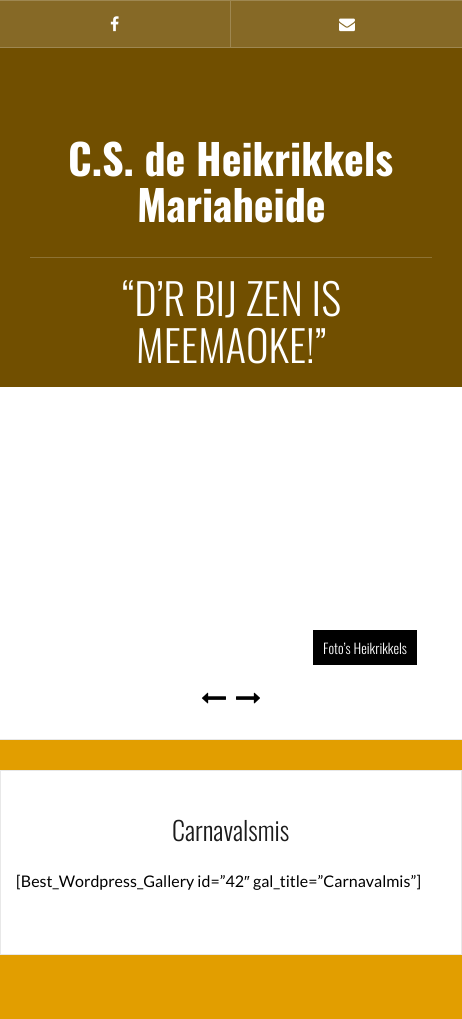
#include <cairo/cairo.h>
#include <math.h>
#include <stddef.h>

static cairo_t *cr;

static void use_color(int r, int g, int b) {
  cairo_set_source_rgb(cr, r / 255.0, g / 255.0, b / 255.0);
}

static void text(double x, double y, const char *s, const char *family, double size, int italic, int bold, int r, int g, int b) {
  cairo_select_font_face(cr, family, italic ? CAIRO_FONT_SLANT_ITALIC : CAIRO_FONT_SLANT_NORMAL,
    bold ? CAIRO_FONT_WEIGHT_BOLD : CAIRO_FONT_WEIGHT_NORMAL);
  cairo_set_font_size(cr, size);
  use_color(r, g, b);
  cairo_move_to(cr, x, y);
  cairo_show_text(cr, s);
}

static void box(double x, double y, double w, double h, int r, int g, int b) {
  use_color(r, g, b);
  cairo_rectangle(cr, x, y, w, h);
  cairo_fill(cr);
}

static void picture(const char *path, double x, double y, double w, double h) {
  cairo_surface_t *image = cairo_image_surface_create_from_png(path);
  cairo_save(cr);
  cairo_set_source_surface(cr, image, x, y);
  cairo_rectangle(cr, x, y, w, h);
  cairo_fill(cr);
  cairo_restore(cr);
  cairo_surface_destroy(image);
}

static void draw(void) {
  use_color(226, 158, 0);
  cairo_paint(cr);
  box(0, 1, 462, 46, 134, 105, 38);
  box(0, 0, 462, 1, 158, 135, 81);
  box(0, 47, 462, 1, 158, 135, 81);
  box(230, 1, 1, 46, 158, 135, 81);
  picture("img_01.png", 110, 16, 9, 16);
  picture("img_02.png", 339, 18, 16, 14);
  box(0, 48, 462, 339, 113, 79, 0);
  box(30, 257, 402, 1, 141, 114, 51);
  box(0, 387, 462, 352, 255, 255, 255);
  box(0, 739, 462, 1, 232, 232, 232);
  box(313, 630, 104, 35, 0, 0, 0);
  picture("img_03.png", 201, 692, 25, 12);
  picture("img_04.png", 236, 692, 24, 12);
  use_color(255, 255, 255);
  cairo_rectangle(cr, 0.5, 770.5, 461, 184);
  cairo_fill_preserve(cr);
  use_color(232, 232, 232);
  cairo_set_line_width(cr, 1);
  cairo_stroke(cr);
  text(68, 176, "C.S. de Heikrikkels", "Oswald", 42, 0, 1, 255, 255, 255);
  text(137, 222, "Mariaheide", "Oswald", 42, 0, 1, 255, 255, 255);
  text(122, 316, "“D’R BIJ ZEN IS", "Oswald Light", 43, 0, 0, 255, 255, 255);
  text(136, 363, "MEEMAOKE!”", "Oswald Light", 43, 0, 0, 255, 255, 255);
  text(323, 654, "Foto’s Heikrikkels", "Oswald Light", 14, 0, 0, 255, 255, 255);
  text(172, 841, "Carnavalsmis", "Oswald Light", 26, 0, 0, 28, 28, 28);
  text(16, 887, "[Best_Wordpress_Gallery id=”42", "Lato", 16, 0, 0, 0, 0, 0);
  text(244, 887, "″", "Liberation Sans", 16, 0, 0, 0, 0, 0);
  text(253, 887, "gal_title=”Carnavalmis”]", "Lato", 16, 0, 0, 0, 0, 0);
}

int main(void) {
  cairo_surface_t *surface = cairo_image_surface_create(CAIRO_FORMAT_RGB24, 462, 1019);
  cr = cairo_create(surface);
  cairo_font_options_t *options = cairo_font_options_create();
  cairo_font_options_set_hint_metrics(options, CAIRO_HINT_METRICS_OFF);
  cairo_font_options_set_hint_style(options, CAIRO_HINT_STYLE_NONE);
  cairo_set_font_options(cr, options);
  cairo_set_miter_limit(cr, 4);
  draw();
  cairo_surface_write_to_png(surface, "out.png");
  cairo_font_options_destroy(options);
  cairo_destroy(cr);
  cairo_surface_destroy(surface);
  return 0;
}
